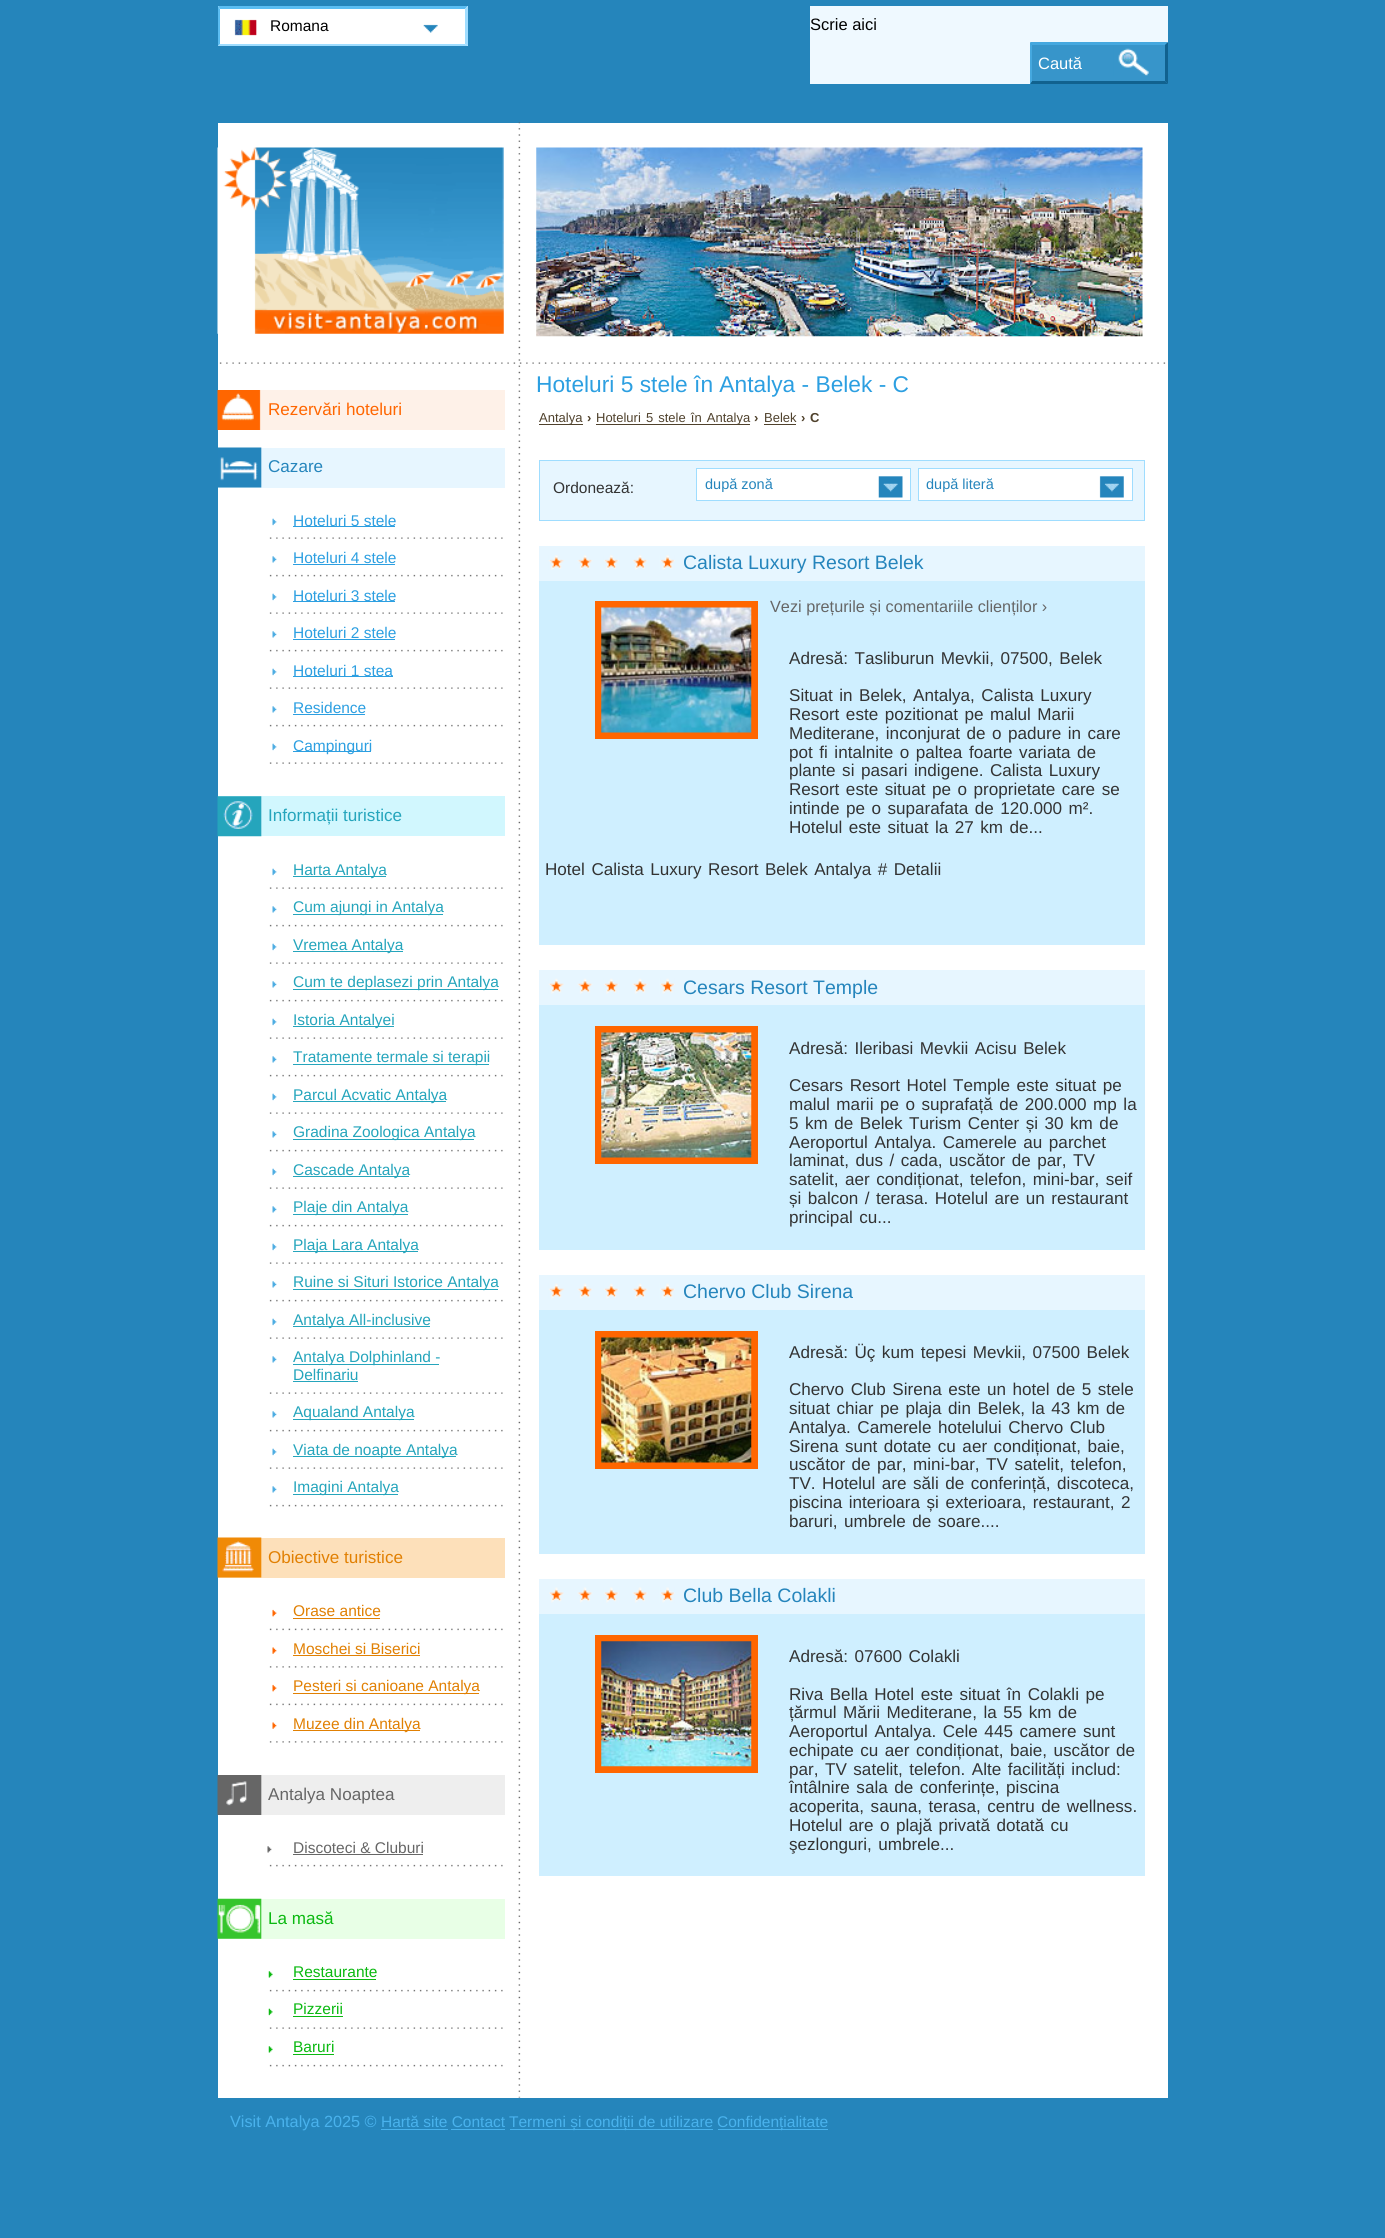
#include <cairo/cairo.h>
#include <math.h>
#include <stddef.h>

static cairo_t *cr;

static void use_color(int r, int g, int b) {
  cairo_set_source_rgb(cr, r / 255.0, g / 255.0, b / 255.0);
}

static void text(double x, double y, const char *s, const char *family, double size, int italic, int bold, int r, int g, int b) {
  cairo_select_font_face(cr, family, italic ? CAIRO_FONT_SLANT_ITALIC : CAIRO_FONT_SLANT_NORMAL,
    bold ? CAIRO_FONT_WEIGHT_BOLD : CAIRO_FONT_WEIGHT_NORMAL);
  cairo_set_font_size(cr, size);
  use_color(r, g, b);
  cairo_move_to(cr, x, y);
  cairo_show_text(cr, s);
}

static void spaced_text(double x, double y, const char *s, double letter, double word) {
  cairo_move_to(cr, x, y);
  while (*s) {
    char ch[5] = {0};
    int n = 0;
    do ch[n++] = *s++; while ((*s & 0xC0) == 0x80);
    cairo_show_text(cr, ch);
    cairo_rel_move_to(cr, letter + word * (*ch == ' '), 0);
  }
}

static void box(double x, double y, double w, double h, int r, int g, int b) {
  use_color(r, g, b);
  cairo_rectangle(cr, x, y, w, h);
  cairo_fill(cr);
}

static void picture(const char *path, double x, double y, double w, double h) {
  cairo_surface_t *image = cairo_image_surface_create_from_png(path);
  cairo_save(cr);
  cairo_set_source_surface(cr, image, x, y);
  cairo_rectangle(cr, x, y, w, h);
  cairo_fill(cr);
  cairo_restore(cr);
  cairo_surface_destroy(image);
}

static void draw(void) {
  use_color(37, 133, 187);
  cairo_paint(cr);
  box(218, 6, 250, 40, 255, 255, 255);
  picture("img_01.png", 423, 24, 15, 9);
  picture("img_02.png", 234, 19, 23, 17);
  use_color(91, 189, 242);
  cairo_new_path(cr);
  cairo_move_to(cr, 218, 6);
  cairo_line_to(cr, 468, 6);
  cairo_line_to(cr, 465, 9);
  cairo_line_to(cr, 220, 9);
  cairo_close_path(cr);
  cairo_fill(cr);
  use_color(159, 221, 255);
  cairo_new_path(cr);
  cairo_move_to(cr, 468, 6);
  cairo_line_to(cr, 468, 46);
  cairo_line_to(cr, 465, 44);
  cairo_line_to(cr, 465, 9);
  cairo_close_path(cr);
  cairo_fill(cr);
  cairo_new_path(cr);
  cairo_move_to(cr, 468, 46);
  cairo_line_to(cr, 218, 46);
  cairo_line_to(cr, 220, 44);
  cairo_line_to(cr, 465, 44);
  cairo_close_path(cr);
  cairo_fill(cr);
  use_color(91, 189, 242);
  cairo_new_path(cr);
  cairo_move_to(cr, 218, 46);
  cairo_line_to(cr, 218, 6);
  cairo_line_to(cr, 220, 9);
  cairo_line_to(cr, 220, 44);
  cairo_close_path(cr);
  cairo_fill(cr);
  box(810, 6, 358, 78, 239, 249, 255);
  box(1030, 43, 138, 41, 55, 149, 202);
  picture("img_03.png", 1113, 45, 45, 31);
  use_color(69, 168, 223);
  cairo_new_path(cr);
  cairo_move_to(cr, 1030, 42);
  cairo_line_to(cr, 1168, 42);
  cairo_line_to(cr, 1165, 45);
  cairo_line_to(cr, 1032, 45);
  cairo_close_path(cr);
  cairo_fill(cr);
  use_color(17, 98, 143);
  cairo_new_path(cr);
  cairo_move_to(cr, 1168, 42);
  cairo_line_to(cr, 1168, 84);
  cairo_line_to(cr, 1165, 81);
  cairo_line_to(cr, 1165, 45);
  cairo_close_path(cr);
  cairo_fill(cr);
  cairo_new_path(cr);
  cairo_move_to(cr, 1168, 84);
  cairo_line_to(cr, 1030, 84);
  cairo_line_to(cr, 1032, 81);
  cairo_line_to(cr, 1165, 81);
  cairo_close_path(cr);
  cairo_fill(cr);
  use_color(69, 168, 223);
  cairo_new_path(cr);
  cairo_move_to(cr, 1030, 84);
  cairo_line_to(cr, 1030, 42);
  cairo_line_to(cr, 1032, 45);
  cairo_line_to(cr, 1032, 81);
  cairo_close_path(cr);
  cairo_fill(cr);
  box(218, 123, 950, 1975, 255, 255, 255);
  picture("img_04.png", 518, 122, 3, 1976);
  picture("img_05.png", 219, 362, 947, 2);
  picture("img_06.png", 217, 147, 287, 187);
  picture("img_07.png", 536, 147, 607, 190);
  box(259, 390, 246, 40, 254, 241, 232);
  picture("img_08.png", 217, 390, 44, 40);
  box(218, 448, 287, 40, 231, 246, 255);
  picture("img_09.png", 218, 447, 44, 41);
  picture("img_10.png", 269, 537, 234, 2);
  picture("img_11.png", 272, 518, 5, 8);
  box(293, 526, 102, 1, 44, 159, 225);
  picture("img_12.png", 269, 574, 234, 3);
  picture("img_13.png", 272, 556, 5, 7);
  box(293, 564, 102, 1, 44, 159, 225);
  picture("img_10.png", 269, 612, 234, 2);
  picture("img_14.png", 272, 593, 5, 8);
  box(293, 601, 102, 1, 44, 159, 225);
  picture("img_12.png", 269, 649, 234, 3);
  picture("img_13.png", 272, 631, 5, 7);
  box(293, 639, 102, 1, 44, 159, 225);
  picture("img_10.png", 269, 687, 234, 2);
  picture("img_11.png", 272, 668, 5, 8);
  box(293, 676, 100, 1, 44, 159, 225);
  picture("img_12.png", 269, 724, 234, 3);
  picture("img_13.png", 272, 706, 5, 7);
  box(293, 714, 72, 1, 44, 159, 225);
  picture("img_10.png", 269, 762, 234, 2);
  picture("img_11.png", 272, 743, 5, 8);
  box(293, 751, 78, 1, 44, 159, 225);
  box(218, 796, 287, 40, 209, 247, 254);
  picture("img_15.png", 217, 796, 45, 41);
  picture("img_10.png", 269, 887, 234, 2);
  picture("img_11.png", 272, 868, 5, 8);
  box(293, 876, 93, 1, 37, 165, 188);
  picture("img_12.png", 269, 924, 234, 3);
  picture("img_13.png", 272, 906, 5, 7);
  box(293, 914, 150, 1, 37, 165, 188);
  picture("img_10.png", 269, 962, 234, 2);
  picture("img_11.png", 272, 943, 5, 8);
  box(293, 951, 110, 1, 37, 165, 188);
  picture("img_12.png", 269, 999, 234, 3);
  picture("img_13.png", 272, 981, 5, 7);
  box(293, 989, 205, 1, 37, 165, 188);
  picture("img_10.png", 269, 1037, 234, 2);
  picture("img_11.png", 272, 1018, 5, 8);
  box(293, 1026, 101, 1, 37, 165, 188);
  picture("img_12.png", 269, 1074, 234, 3);
  picture("img_13.png", 272, 1056, 5, 7);
  box(293, 1064, 196, 1, 37, 165, 188);
  picture("img_10.png", 269, 1112, 234, 2);
  picture("img_11.png", 272, 1093, 5, 8);
  box(293, 1101, 153, 1, 37, 165, 188);
  picture("img_12.png", 269, 1149, 234, 3);
  picture("img_13.png", 272, 1131, 5, 7);
  box(293, 1139, 181, 1, 37, 165, 188);
  picture("img_10.png", 269, 1187, 234, 2);
  picture("img_11.png", 272, 1168, 5, 8);
  box(293, 1176, 116, 1, 37, 165, 188);
  picture("img_12.png", 269, 1224, 234, 3);
  picture("img_13.png", 272, 1206, 5, 7);
  box(293, 1214, 115, 1, 37, 165, 188);
  picture("img_10.png", 269, 1262, 234, 2);
  picture("img_11.png", 272, 1243, 5, 8);
  box(293, 1251, 125, 1, 37, 165, 188);
  picture("img_12.png", 269, 1299, 234, 3);
  picture("img_13.png", 272, 1281, 5, 7);
  box(293, 1289, 205, 1, 37, 165, 188);
  picture("img_10.png", 269, 1337, 234, 2);
  picture("img_11.png", 272, 1318, 5, 8);
  box(293, 1326, 137, 1, 37, 165, 188);
  picture("img_10.png", 269, 1392, 234, 2);
  picture("img_13.png", 272, 1356, 5, 7);
  box(293, 1364, 146, 1, 37, 165, 188);
  box(293, 1381, 65, 1, 37, 165, 188);
  picture("img_12.png", 269, 1429, 234, 3);
  picture("img_13.png", 272, 1411, 5, 7);
  box(293, 1419, 121, 1, 37, 165, 188);
  picture("img_10.png", 269, 1467, 234, 2);
  picture("img_11.png", 272, 1448, 5, 8);
  box(293, 1456, 163, 1, 37, 165, 188);
  picture("img_12.png", 269, 1504, 234, 3);
  picture("img_13.png", 272, 1486, 5, 7);
  box(293, 1494, 105, 1, 37, 165, 188);
  box(218, 1538, 287, 40, 253, 224, 186);
  picture("img_16.png", 217, 1537, 45, 41);
  picture("img_17.png", 269, 1628, 234, 3);
  picture("img_18.png", 272, 1609, 5, 8);
  box(293, 1618, 87, 1, 225, 128, 3);
  picture("img_19.png", 269, 1666, 234, 2);
  picture("img_20.png", 272, 1647, 5, 7);
  box(293, 1655, 127, 1, 225, 128, 3);
  picture("img_17.png", 269, 1703, 234, 3);
  picture("img_18.png", 272, 1684, 5, 8);
  box(293, 1693, 186, 1, 225, 128, 3);
  picture("img_19.png", 269, 1741, 234, 2);
  picture("img_20.png", 272, 1722, 5, 7);
  box(293, 1730, 127, 1, 225, 128, 3);
  box(261, 1775, 244, 40, 238, 238, 238);
  picture("img_21.png", 217, 1775, 45, 40);
  picture("img_12.png", 269, 1864, 234, 3);
  picture("img_22.png", 267, 1846, 5, 7);
  box(293, 1854, 130, 1, 102, 102, 102);
  box(218, 1899, 287, 40, 232, 255, 230);
  picture("img_23.png", 217, 1898, 45, 41);
  picture("img_12.png", 269, 1989, 234, 3);
  picture("img_24.png", 268, 1971, 5, 7);
  box(293, 1979, 83, 1, 11, 185, 17);
  picture("img_10.png", 269, 2027, 234, 2);
  picture("img_25.png", 268, 2008, 5, 8);
  box(293, 2016, 50, 1, 11, 185, 17);
  picture("img_12.png", 269, 2064, 234, 3);
  picture("img_24.png", 268, 2046, 5, 7);
  box(293, 2054, 41, 1, 11, 185, 17);
  box(539, 424, 44, 1, 79, 65, 44);
  box(596, 424, 154, 1, 79, 65, 44);
  box(764, 424, 32, 1, 79, 65, 44);
  use_color(231, 246, 255);
  cairo_rectangle(cr, 539.5, 460.5, 605, 60);
  cairo_fill_preserve(cr);
  use_color(159, 221, 255);
  cairo_set_line_width(cr, 1);
  cairo_stroke(cr);
  box(697, 469, 213, 31, 255, 255, 255);
  picture("img_26.png", 878, 476, 25, 22);
  cairo_rectangle(cr, 696.5, 468.5, 214, 32);
  use_color(159, 221, 255);
  cairo_stroke(cr);
  box(919, 469, 213, 31, 255, 255, 255);
  picture("img_27.png", 1099, 476, 25, 22);
  cairo_rectangle(cr, 918.5, 468.5, 214, 32);
  use_color(159, 221, 255);
  cairo_stroke(cr);
  box(539, 581, 606, 364, 207, 239, 255);
  box(539, 546, 606, 35, 231, 246, 255);
  picture("img_28.png", 548, 555, 127, 15);
  box(595, 601, 163, 138, 255, 102, 0);
  picture("img_29.png", 601, 607, 151, 126);
  box(539, 1005, 606, 245, 207, 239, 255);
  box(539, 970, 606, 35, 231, 246, 255);
  picture("img_30.png", 548, 978, 127, 16);
  box(595, 1026, 163, 138, 255, 102, 0);
  picture("img_31.png", 601, 1032, 151, 126);
  box(539, 1310, 606, 244, 207, 239, 255);
  box(539, 1275, 606, 35, 231, 246, 255);
  picture("img_32.png", 548, 1283, 127, 16);
  box(595, 1331, 163, 138, 255, 102, 0);
  picture("img_33.png", 601, 1337, 151, 126);
  box(539, 1614, 606, 262, 207, 239, 255);
  box(539, 1579, 606, 35, 231, 246, 255);
  picture("img_34.png", 549, 1587, 126, 16);
  box(595, 1635, 163, 138, 255, 102, 0);
  picture("img_35.png", 601, 1641, 151, 126);
  box(381, 2129, 67, 1, 73, 178, 237);
  box(510, 2129, 203, 1, 73, 178, 237);
  box(718, 2129, 110, 1, 73, 178, 237);
  box(451, 2129, 54, 1, 73, 178, 237);
  text(270, 31, "Romana", "Liberation Sans", 15.5, 0, 0, 0, 0, 0);
  text(810, 30, "Scrie aici", "Liberation Sans", 16.5, 0, 0, 0, 0, 0);
  text(1038, 69, "Caută", "Liberation Sans", 16.5, 0, 0, 255, 255, 255);
  text(536, 392, "Hoteluri 5 stele în Antalya - Belek - C", "Liberation Sans", 22.75, 0, 0, 44, 159, 225);
  text(268, 415, "Rezervări hoteluri", "Liberation Sans", 17.1, 0, 0, 255, 102, 0);
  text(268, 472, "Cazare", "Liberation Sans", 17.1, 0, 0, 37, 133, 188);
  text(293, 526, "Hoteluri 5 stele", "Liberation Sans", 15.5, 0, 0, 44, 159, 225);
  text(293, 563, "Hoteluri 4 stele", "Liberation Sans", 15.5, 0, 0, 44, 159, 225);
  text(293, 601, "Hoteluri 3 stele", "Liberation Sans", 15.5, 0, 0, 44, 159, 225);
  text(293, 638, "Hoteluri 2 stele", "Liberation Sans", 15.5, 0, 0, 44, 159, 225);
  text(293, 676, "Hoteluri 1 stea", "Liberation Sans", 15.5, 0, 0, 44, 159, 225);
  text(293, 713, "Residence", "Liberation Sans", 15.5, 0, 0, 44, 159, 225);
  text(293, 751, "Campinguri", "Liberation Sans", 15.5, 0, 0, 44, 159, 225);
  text(268, 821, "Informații turistice", "Liberation Sans", 17.1, 0, 0, 37, 165, 188);
  text(293, 875, "Harta Antalya", "Liberation Sans", 15.5, 0, 0, 37, 165, 188);
  text(293, 912, "Cum ajungi in Antalya", "Liberation Sans", 15.5, 0, 0, 37, 165, 188);
  text(293, 950, "Vremea Antalya", "Liberation Sans", 15.5, 0, 0, 37, 165, 188);
  text(293, 987, "Cum te deplasezi prin Antalya", "Liberation Sans", 15.5, 0, 0, 37, 165, 188);
  text(293, 1025, "Istoria Antalyei", "Liberation Sans", 15.5, 0, 0, 37, 165, 188);
  text(293, 1062, "Tratamente termale si terapii", "Liberation Sans", 15.5, 0, 0, 37, 165, 188);
  text(293, 1100, "Parcul Acvatic Antalya", "Liberation Sans", 15.5, 0, 0, 37, 165, 188);
  text(293, 1137, "Gradina Zoologica Antalya", "Liberation Sans", 15.5, 0, 0, 37, 165, 188);
  text(293, 1175, "Cascade Antalya", "Liberation Sans", 15.5, 0, 0, 37, 165, 188);
  text(293, 1212, "Plaje din Antalya", "Liberation Sans", 15.5, 0, 0, 37, 165, 188);
  text(293, 1250, "Plaja Lara Antalya", "Liberation Sans", 15.5, 0, 0, 37, 165, 188);
  text(293, 1287, "Ruine si Situri Istorice Antalya", "Liberation Sans", 15.5, 0, 0, 37, 165, 188);
  text(293, 1325, "Antalya All-inclusive", "Liberation Sans", 15.5, 0, 0, 37, 165, 188);
  text(293, 1362, "Antalya Dolphinland -", "Liberation Sans", 15.5, 0, 0, 37, 165, 188);
  text(293, 1380, "Delfinariu", "Liberation Sans", 15.5, 0, 0, 37, 165, 188);
  text(293, 1417, "Aqualand Antalya", "Liberation Sans", 15.5, 0, 0, 37, 165, 188);
  text(293, 1455, "Viata de noapte Antalya", "Liberation Sans", 15.5, 0, 0, 37, 165, 188);
  text(293, 1492, "Imagini Antalya", "Liberation Sans", 15.5, 0, 0, 37, 165, 188);
  text(268, 1563, "Obiective turistice", "Liberation Sans", 17.1, 0, 0, 225, 128, 3);
  text(293, 1616, "Orase antice", "Liberation Sans", 15.5, 0, 0, 225, 128, 3);
  text(293, 1654, "Moschei si Biserici", "Liberation Sans", 15.5, 0, 0, 225, 128, 3);
  text(293, 1691, "Pesteri si canioane Antalya", "Liberation Sans", 15.5, 0, 0, 225, 128, 3);
  text(293, 1729, "Muzee din Antalya", "Liberation Sans", 15.5, 0, 0, 225, 128, 3);
  text(268, 1800, "Antalya Noaptea", "Liberation Sans", 17.1, 0, 0, 102, 102, 102);
  text(293, 1853, "Discoteci & Cluburi", "Liberation Sans", 15.5, 0, 0, 102, 102, 102);
  text(268, 1924, "La masă", "Liberation Sans", 17.1, 0, 0, 11, 185, 17);
  text(293, 1977, "Restaurante", "Liberation Sans", 15.5, 0, 0, 11, 185, 17);
  text(293, 2014, "Pizzerii", "Liberation Sans", 15.5, 0, 0, 11, 185, 17);
  text(293, 2052, "Baruri", "Liberation Sans", 15.5, 0, 0, 11, 185, 17);
  text(539, 422, "Antalya", "Liberation Sans", 13, 0, 0, 79, 65, 44);
  text(587, 422, "›", "Liberation Sans", 13, 0, 1, 79, 65, 44);
  cairo_select_font_face(cr, "Liberation Sans", CAIRO_FONT_SLANT_NORMAL, CAIRO_FONT_WEIGHT_NORMAL);
  spaced_text(596, 422, "Hoteluri 5 stele în Antalya", 0, 1.5);
  text(754, 422, "›", "Liberation Sans", 13, 0, 1, 79, 65, 44);
  text(764, 422, "Belek", "Liberation Sans", 13, 0, 0, 79, 65, 44);
  text(801, 422, "›", "Liberation Sans", 13, 0, 1, 79, 65, 44);
  text(810, 422, "C", "Liberation Sans", 13, 0, 1, 79, 65, 44);
  text(553, 493, "Ordonează:", "Liberation Sans", 15.5, 0, 0, 51, 51, 51);
  text(705, 489, "după zonă", "Liberation Sans", 14.5, 0, 0, 37, 133, 188);
  text(926, 489, "după literă", "Liberation Sans", 14.5, 0, 0, 37, 133, 188);
  text(683, 569, "Calista Luxury Resort Belek", "Liberation Sans", 19.5, 0, 0, 37, 133, 188);
  text(770, 612, "Vezi prețurile și comentariile clienților ›", "Liberation Sans", 16.25, 0, 0, 102, 102, 102);
  cairo_set_font_size(cr, 17.1);
  use_color(51, 51, 51);
  spaced_text(789, 664, "Adresă: Tasliburun Mevkii, 07500, Belek", 0, 1.75);
  spaced_text(789, 701, "Situat in Belek, Antalya, Calista Luxury", 0, 1.75);
  spaced_text(789, 720, "Resort este pozitionat pe malul Marii", 0, 1.75);
  spaced_text(789, 739, "Mediterane, inconjurat de o padure in care", 0, 1.75);
  spaced_text(789, 758, "pot fi intalnite o paltea foarte variata de", 0, 1.75);
  spaced_text(789, 776, "plante si pasari indigene. Calista Luxury", 0, 1.75);
  spaced_text(789, 795, "Resort este situat pe o proprietate care se", 0, 1.75);
  spaced_text(789, 814, "intinde pe o suparafata de 120.000 m².", 0, 1.75);
  spaced_text(789, 833, "Hotelul este situat la 27 km de...", 0, 1.75);
  spaced_text(545, 875, "Hotel Calista Luxury Resort Belek Antalya # Detalii", 0, 1.75);
  text(683, 994, "Cesars Resort Temple", "Liberation Sans", 19.5, 0, 0, 37, 133, 188);
  cairo_set_font_size(cr, 17.1);
  use_color(51, 51, 51);
  spaced_text(789, 1054, "Adresă: Ileribasi Mevkii Acisu Belek", 0, 1.75);
  spaced_text(789, 1091, "Cesars Resort Hotel Temple este situat pe", 0, 1.75);
  spaced_text(789, 1110, "malul marii pe o suprafață de 200.000 mp la", 0, 1.75);
  spaced_text(789, 1129, "5 km de Belek Turism Center și 30 km de", 0, 1.75);
  spaced_text(789, 1148, "Aeroportul Antalya. Camerele au parchet", 0, 1.75);
  spaced_text(789, 1166, "laminat, dus / cada, uscător de par, TV", 0, 1.75);
  spaced_text(789, 1185, "satelit, aer condiționat, telefon, mini-bar, seif", 0, 1.75);
  spaced_text(789, 1204, "și balcon / terasa. Hotelul are un restaurant", 0, 1.75);
  spaced_text(789, 1223, "principal cu...", 0, 1.75);
  text(683, 1298, "Chervo Club Sirena", "Liberation Sans", 19.5, 0, 0, 37, 133, 188);
  cairo_set_font_size(cr, 17.1);
  use_color(51, 51, 51);
  spaced_text(789, 1358, "Adresă: Üç kum tepesi Mevkii, 07500 Belek", 0, 1.75);
  spaced_text(789, 1395, "Chervo Club Sirena este un hotel de 5 stele", 0, 1.75);
  spaced_text(789, 1414, "situat chiar pe plaja din Belek, la 43 km de", 0, 1.75);
  spaced_text(789, 1433, "Antalya. Camerele hotelului Chervo Club", 0, 1.75);
  spaced_text(789, 1452, "Sirena sunt dotate cu aer condiționat, baie,", 0, 1.75);
  spaced_text(789, 1470, "uscător de par, mini-bar, TV satelit, telefon,", 0, 1.75);
  spaced_text(789, 1489, "TV. Hotelul are săli de conferință, discoteca,", 0, 1.75);
  spaced_text(789, 1508, "piscina interioara și exterioara, restaurant, 2", 0, 1.75);
  spaced_text(789, 1527, "baruri, umbrele de soare....", 0, 1.75);
  text(683, 1602, "Club Bella Colakli", "Liberation Sans", 19.5, 0, 0, 37, 133, 188);
  cairo_set_font_size(cr, 17.1);
  use_color(51, 51, 51);
  spaced_text(789, 1662, "Adresă: 07600 Colakli", 0, 1.75);
  spaced_text(789, 1700, "Riva Bella Hotel este situat în Colakli pe", 0, 1.75);
  spaced_text(789, 1718, "țărmul Mării Mediterane, la 55 km de", 0, 1.75);
  spaced_text(789, 1737, "Aeroportul Antalya. Cele 445 camere sunt", 0, 1.75);
  spaced_text(789, 1756, "echipate cu aer condiționat, baie, uscător de", 0, 1.75);
  spaced_text(789, 1775, "par, TV satelit, telefon. Alte facilități includ:", 0, 1.75);
  spaced_text(789, 1793, "întâlnire sala de conferințe, piscina", 0, 1.75);
  spaced_text(789, 1812, "acoperita, sauna, terasa, centru de wellness.", 0, 1.75);
  spaced_text(789, 1831, "Hotelul are o plajă privată dotată cu", 0, 1.75);
  spaced_text(789, 1850, "şezlonguri, umbrele...", 0, 1.75);
  text(230, 2127, "Visit Antalya 2025 ©", "Liberation Sans", 16.25, 0, 0, 73, 178, 237);
  text(381, 2127, "Hartă site Contact", "Liberation Sans", 15.5, 0, 0, 73, 178, 237);
  text(509, 2127, "Termeni și condiții de utilizare", "Liberation Sans", 15.5, 0, 0, 73, 178, 237);
  text(717, 2127, "Confidențialitate", "Liberation Sans", 15.5, 0, 0, 73, 178, 237);
}

int main(void) {
  cairo_surface_t *surface = cairo_image_surface_create(CAIRO_FORMAT_RGB24, 1385, 2238);
  cr = cairo_create(surface);
  cairo_font_options_t *options = cairo_font_options_create();
  cairo_font_options_set_hint_metrics(options, CAIRO_HINT_METRICS_OFF);
  cairo_font_options_set_hint_style(options, CAIRO_HINT_STYLE_NONE);
  cairo_set_font_options(cr, options);
  cairo_set_miter_limit(cr, 4);
  draw();
  cairo_surface_write_to_png(surface, "out.png");
  cairo_font_options_destroy(options);
  cairo_destroy(cr);
  cairo_surface_destroy(surface);
  return 0;
}
